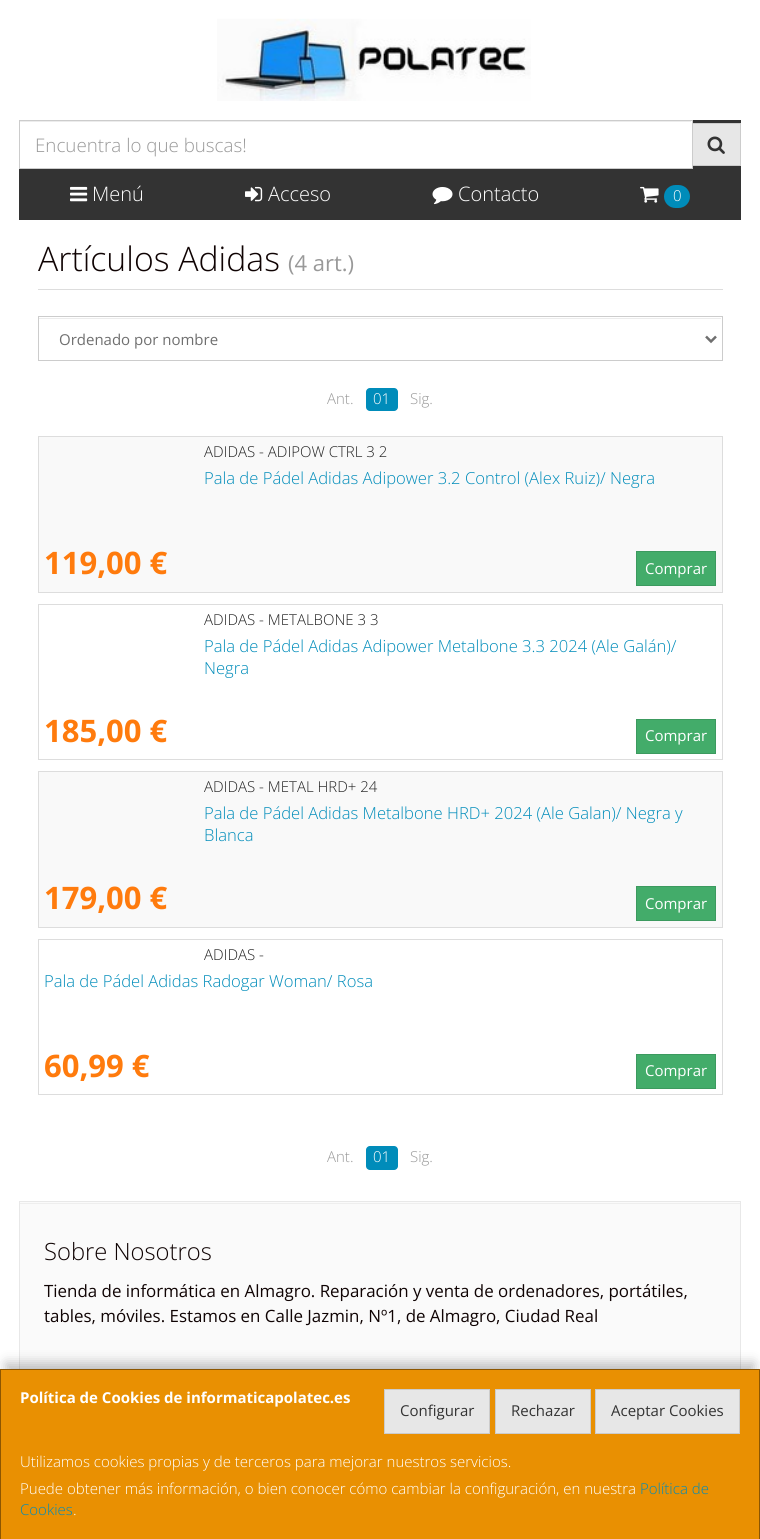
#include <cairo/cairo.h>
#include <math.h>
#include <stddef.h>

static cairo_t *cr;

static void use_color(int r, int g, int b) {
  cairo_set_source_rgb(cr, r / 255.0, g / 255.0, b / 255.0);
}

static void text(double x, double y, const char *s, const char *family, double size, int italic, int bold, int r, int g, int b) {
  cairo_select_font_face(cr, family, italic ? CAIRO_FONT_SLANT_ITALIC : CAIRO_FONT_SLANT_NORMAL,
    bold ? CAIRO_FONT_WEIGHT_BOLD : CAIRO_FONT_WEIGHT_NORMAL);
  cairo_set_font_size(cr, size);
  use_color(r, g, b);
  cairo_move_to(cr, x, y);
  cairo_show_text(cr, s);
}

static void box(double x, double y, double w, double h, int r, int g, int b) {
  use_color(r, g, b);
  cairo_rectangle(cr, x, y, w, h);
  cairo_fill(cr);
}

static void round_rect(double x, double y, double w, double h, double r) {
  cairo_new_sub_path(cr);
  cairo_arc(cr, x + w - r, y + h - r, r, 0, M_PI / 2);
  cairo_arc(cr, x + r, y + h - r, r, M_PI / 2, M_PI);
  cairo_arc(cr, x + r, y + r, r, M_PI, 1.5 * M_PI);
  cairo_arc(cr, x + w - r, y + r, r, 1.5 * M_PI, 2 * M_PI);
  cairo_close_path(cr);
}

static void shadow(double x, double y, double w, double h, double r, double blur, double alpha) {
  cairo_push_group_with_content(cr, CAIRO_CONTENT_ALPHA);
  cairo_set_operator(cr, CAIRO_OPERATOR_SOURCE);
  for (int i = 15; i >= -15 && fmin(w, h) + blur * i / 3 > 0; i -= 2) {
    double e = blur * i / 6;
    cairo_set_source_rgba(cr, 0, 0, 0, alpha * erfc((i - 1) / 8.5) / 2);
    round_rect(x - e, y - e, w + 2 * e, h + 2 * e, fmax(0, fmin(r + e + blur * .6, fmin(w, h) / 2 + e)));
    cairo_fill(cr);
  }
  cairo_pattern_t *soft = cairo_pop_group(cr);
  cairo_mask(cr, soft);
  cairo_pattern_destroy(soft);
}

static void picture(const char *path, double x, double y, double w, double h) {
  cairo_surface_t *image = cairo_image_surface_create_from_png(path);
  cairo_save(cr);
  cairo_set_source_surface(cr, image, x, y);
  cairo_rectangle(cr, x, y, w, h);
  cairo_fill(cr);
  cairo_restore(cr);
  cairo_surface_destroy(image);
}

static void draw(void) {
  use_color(255, 255, 255);
  cairo_paint(cr);
  picture("img_01.png", 217, 18, 314, 83);
  box(19, 120, 722, 100, 51, 51, 51);
  box(693, 124, 47, 41, 231, 231, 231);
  cairo_rectangle(cr, 691.5, 123.5, 49, 42);
  use_color(204, 204, 204);
  cairo_set_line_width(cr, 1);
  cairo_stroke(cr);
  box(20, 121, 672, 47, 255, 255, 255);
  box(20, 121, 671, 1, 236, 236, 236);
  cairo_rectangle(cr, 19.5, 120.5, 673, 48);
  use_color(204, 204, 204);
  cairo_stroke(cr);
  picture("img_02.png", 707, 136, 18, 18);
  picture("img_03.png", 70, 186, 18, 16);
  picture("img_04.png", 245, 186, 18, 16);
  picture("img_05.png", 432, 187, 21, 18);
  picture("img_06.png", 640, 186, 19, 17);
  use_color(0, 140, 186);
  round_rect(664, 185, 26, 23, 11.5);
  cairo_fill(cr);
  box(38, 289, 685, 1, 221, 221, 221);
  box(39, 318, 682, 1, 236, 236, 236);
  cairo_rectangle(cr, 38.5, 316.5, 684, 44);
  use_color(204, 204, 204);
  cairo_stroke(cr);
  cairo_new_path(cr);
  cairo_move_to(cr, 706, 336.5);
  cairo_line_to(cr, 711, 341.5);
  cairo_line_to(cr, 716, 336.5);
  use_color(111, 111, 111);
  cairo_set_line_width(cr, 2.5);
  cairo_stroke(cr);
  use_color(0, 140, 186);
  round_rect(366, 388, 32, 23, 4);
  cairo_fill(cr);
  use_color(249, 249, 249);
  cairo_rectangle(cr, 38.5, 436.5, 684, 156);
  cairo_fill_preserve(cr);
  use_color(221, 221, 221);
  cairo_set_line_width(cr, 1);
  cairo_stroke(cr);
  use_color(67, 172, 106);
  cairo_rectangle(cr, 636.5, 551.5, 79, 34);
  cairo_fill_preserve(cr);
  use_color(60, 154, 95);
  cairo_stroke(cr);
  cairo_rectangle(cr, 38.5, 604.5, 684, 155);
  use_color(221, 221, 221);
  cairo_stroke(cr);
  use_color(67, 172, 106);
  cairo_rectangle(cr, 636.5, 719.5, 79, 34);
  cairo_fill_preserve(cr);
  use_color(60, 154, 95);
  cairo_stroke(cr);
  use_color(249, 249, 249);
  cairo_rectangle(cr, 38.5, 771.5, 684, 156);
  cairo_fill_preserve(cr);
  use_color(221, 221, 221);
  cairo_stroke(cr);
  use_color(67, 172, 106);
  cairo_rectangle(cr, 636.5, 886.5, 79, 34);
  cairo_fill_preserve(cr);
  use_color(60, 154, 95);
  cairo_stroke(cr);
  cairo_rectangle(cr, 38.5, 939.5, 684, 155);
  use_color(221, 221, 221);
  cairo_stroke(cr);
  use_color(67, 172, 106);
  cairo_rectangle(cr, 636.5, 1054.5, 79, 34);
  cairo_fill_preserve(cr);
  use_color(60, 154, 95);
  cairo_stroke(cr);
  use_color(0, 140, 186);
  round_rect(366, 1146, 32, 24, 4);
  cairo_fill(cr);
  box(20, 1202, 720, 167, 250, 250, 250);
  box(20, 1203, 720, 1, 238, 238, 238);
  cairo_rectangle(cr, 19.5, 1201.5, 721, 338);
  use_color(232, 232, 232);
  cairo_stroke(cr);
  use_color(0, 0, 0);
  shadow(6, 1363, 748, 158, 0, 6, 0.25);
  box(0, 1369, 760, 170, 233, 144, 2);
  use_color(140, 86, 1);
  cairo_new_path(cr);
  cairo_move_to(cr, 0, 1369);
  cairo_line_to(cr, 760, 1369);
  cairo_line_to(cr, 759, 1370);
  cairo_line_to(cr, 1, 1370);
  cairo_close_path(cr);
  cairo_fill(cr);
  cairo_set_source_rgba(cr, 0, 0, 0, 0.4);
  cairo_new_path(cr);
  cairo_move_to(cr, 760, 1369);
  cairo_line_to(cr, 760, 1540);
  cairo_line_to(cr, 759, 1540);
  cairo_line_to(cr, 759, 1370);
  cairo_close_path(cr);
  cairo_fill(cr);
  cairo_new_path(cr);
  cairo_move_to(cr, 0, 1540);
  cairo_line_to(cr, 0, 1369);
  cairo_line_to(cr, 1, 1370);
  cairo_line_to(cr, 1, 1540);
  cairo_close_path(cr);
  cairo_fill(cr);
  use_color(231, 231, 231);
  cairo_rectangle(cr, 384.5, 1389.5, 105, 44);
  cairo_fill_preserve(cr);
  use_color(204, 204, 204);
  cairo_stroke(cr);
  use_color(231, 231, 231);
  cairo_rectangle(cr, 495.5, 1389.5, 95, 44);
  cairo_fill_preserve(cr);
  use_color(204, 204, 204);
  cairo_stroke(cr);
  use_color(231, 231, 231);
  cairo_rectangle(cr, 595.5, 1389.5, 144, 44);
  cairo_fill_preserve(cr);
  use_color(204, 204, 204);
  cairo_stroke(cr);
  text(35, 152, "Encuentra lo que buscas!", "Open Sans Light", 18.75, 0, 0, 153, 153, 153);
  text(92, 201, "Menú", "Open Sans Light", 20, 0, 0, 255, 255, 255);
  text(268, 201, "Acceso", "Open Sans Light", 20, 0, 0, 255, 255, 255);
  text(458, 201, "Contacto", "Open Sans Light", 20, 0, 0, 255, 255, 255);
  text(673, 201, "0", "Open Sans Light", 15, 0, 0, 255, 255, 255);
  text(38, 271, "Artículos Adidas", "Open Sans Light", 33.75, 0, 0, 15, 3, 3);
  text(288, 271, "(4 art.)", "Open Sans", 22, 0, 0, 153, 153, 153);
  text(59, 345, "Ordenado por nombre", "Open Sans", 15, 0, 0, 111, 111, 111);
  text(327, 404, "Ant.", "Open Sans Light", 15, 0, 0, 153, 153, 153);
  text(373, 404, "01", "Open Sans Light", 15, 0, 0, 255, 255, 255);
  text(410, 404, "Sig.", "Open Sans Light", 15, 0, 0, 153, 153, 153);
  text(204, 457, "ADIDAS - ADIPOW CTRL 3 2", "Open Sans Light", 15, 0, 0, 34, 34, 34);
  text(204, 484, "Pala de Pádel Adidas Adipower 3.2 Control (Alex Ruiz)/ Negra", "Open Sans Light", 16.6, 0, 0, 0, 140, 186);
  text(44, 574, "119,00 €", "Open Sans", 31, 0, 1, 255, 123, 13);
  text(645, 574, "Comprar", "Open Sans", 15, 0, 0, 255, 255, 255);
  text(204, 625, "ADIDAS - METALBONE 3 3", "Open Sans Light", 15, 0, 0, 34, 34, 34);
  text(204, 652, "Pala de Pádel Adidas Adipower Metalbone 3.3 2024 (Ale Galán)/", "Open Sans Light", 16.6, 0, 0, 0, 140, 186);
  text(204, 674, "Negra", "Open Sans Light", 16.6, 0, 0, 0, 140, 186);
  text(44, 742, "185,00 €", "Open Sans", 31, 0, 1, 255, 123, 13);
  text(645, 741, "Comprar", "Open Sans", 15, 0, 0, 255, 255, 255);
  text(204, 792, "ADIDAS - METAL HRD+ 24", "Open Sans Light", 15, 0, 0, 34, 34, 34);
  text(204, 819, "Pala de Pádel Adidas Metalbone HRD+ 2024 (Ale Galan)/ Negra y", "Open Sans Light", 16.6, 0, 0, 0, 140, 186);
  text(204, 841, "Blanca", "Open Sans Light", 16.6, 0, 0, 0, 140, 186);
  text(44, 909, "179,00 €", "Open Sans", 31, 0, 1, 255, 123, 13);
  text(645, 909, "Comprar", "Open Sans", 15, 0, 0, 255, 255, 255);
  text(204, 960, "ADIDAS -", "Open Sans Light", 15, 0, 0, 34, 34, 34);
  text(44, 987, "Pala de Pádel Adidas Radogar Woman/ Rosa", "Open Sans Light", 16.6, 0, 0, 0, 140, 186);
  text(44, 1077, "60,99 €", "Open Sans", 31, 0, 1, 255, 123, 13);
  text(645, 1076, "Comprar", "Open Sans", 15, 0, 0, 255, 255, 255);
  text(327, 1162, "Ant.", "Open Sans Light", 15, 0, 0, 153, 153, 153);
  text(373, 1162, "01", "Open Sans Light", 15, 0, 0, 255, 255, 255);
  text(410, 1162, "Sig.", "Open Sans Light", 15, 0, 0, 153, 153, 153);
  text(44, 1260, "Sobre Nosotros", "Open Sans Light", 23.75, 0, 0, 15, 3, 3);
  text(44, 1297, "Tienda de informática en Almagro. Reparación y venta de ordenadores, portátiles,", "Open Sans", 16.9, 0, 0, 15, 3, 3);
  text(44, 1322, "tables, móviles. Estamos en Calle Jazmin, Nº1, de Almagro, Ciudad Real", "Open Sans", 16.9, 0, 0, 15, 3, 3);
  text(20, 1403, "Política de Cookies de informaticapolatec.es", "Open Sans", 15, 0, 1, 255, 255, 255);
  text(400, 1416, "Configurar", "Open Sans", 15, 0, 0, 51, 51, 51);
  text(511, 1416, "Rechazar", "Open Sans", 15, 0, 0, 51, 51, 51);
  text(611, 1416, "Aceptar Cookies", "Open Sans", 15, 0, 0, 51, 51, 51);
  text(20, 1467, "Utilizamos cookies propias y de terceros para mejorar nuestros servicios.", "Open Sans Light", 15, 0, 0, 255, 255, 255);
  text(20, 1494, "Puede obtener más información, o bien conocer cómo cambiar la configuración, en nuestra", "Open Sans Light", 15, 0, 0, 255, 255, 255);
  text(640, 1494, "Política de", "Open Sans Light", 15, 0, 0, 0, 140, 186);
  text(20, 1515, "Cookies", "Open Sans Light", 15, 0, 0, 0, 140, 186);
  text(73, 1515, ".", "Open Sans Light", 15, 0, 0, 255, 255, 255);
}

int main(void) {
  cairo_surface_t *surface = cairo_image_surface_create(CAIRO_FORMAT_RGB24, 760, 1539);
  cr = cairo_create(surface);
  cairo_font_options_t *options = cairo_font_options_create();
  cairo_font_options_set_hint_metrics(options, CAIRO_HINT_METRICS_OFF);
  cairo_font_options_set_hint_style(options, CAIRO_HINT_STYLE_NONE);
  cairo_set_font_options(cr, options);
  cairo_set_miter_limit(cr, 4);
  draw();
  cairo_surface_write_to_png(surface, "out.png");
  cairo_font_options_destroy(options);
  cairo_destroy(cr);
  cairo_surface_destroy(surface);
  return 0;
}
